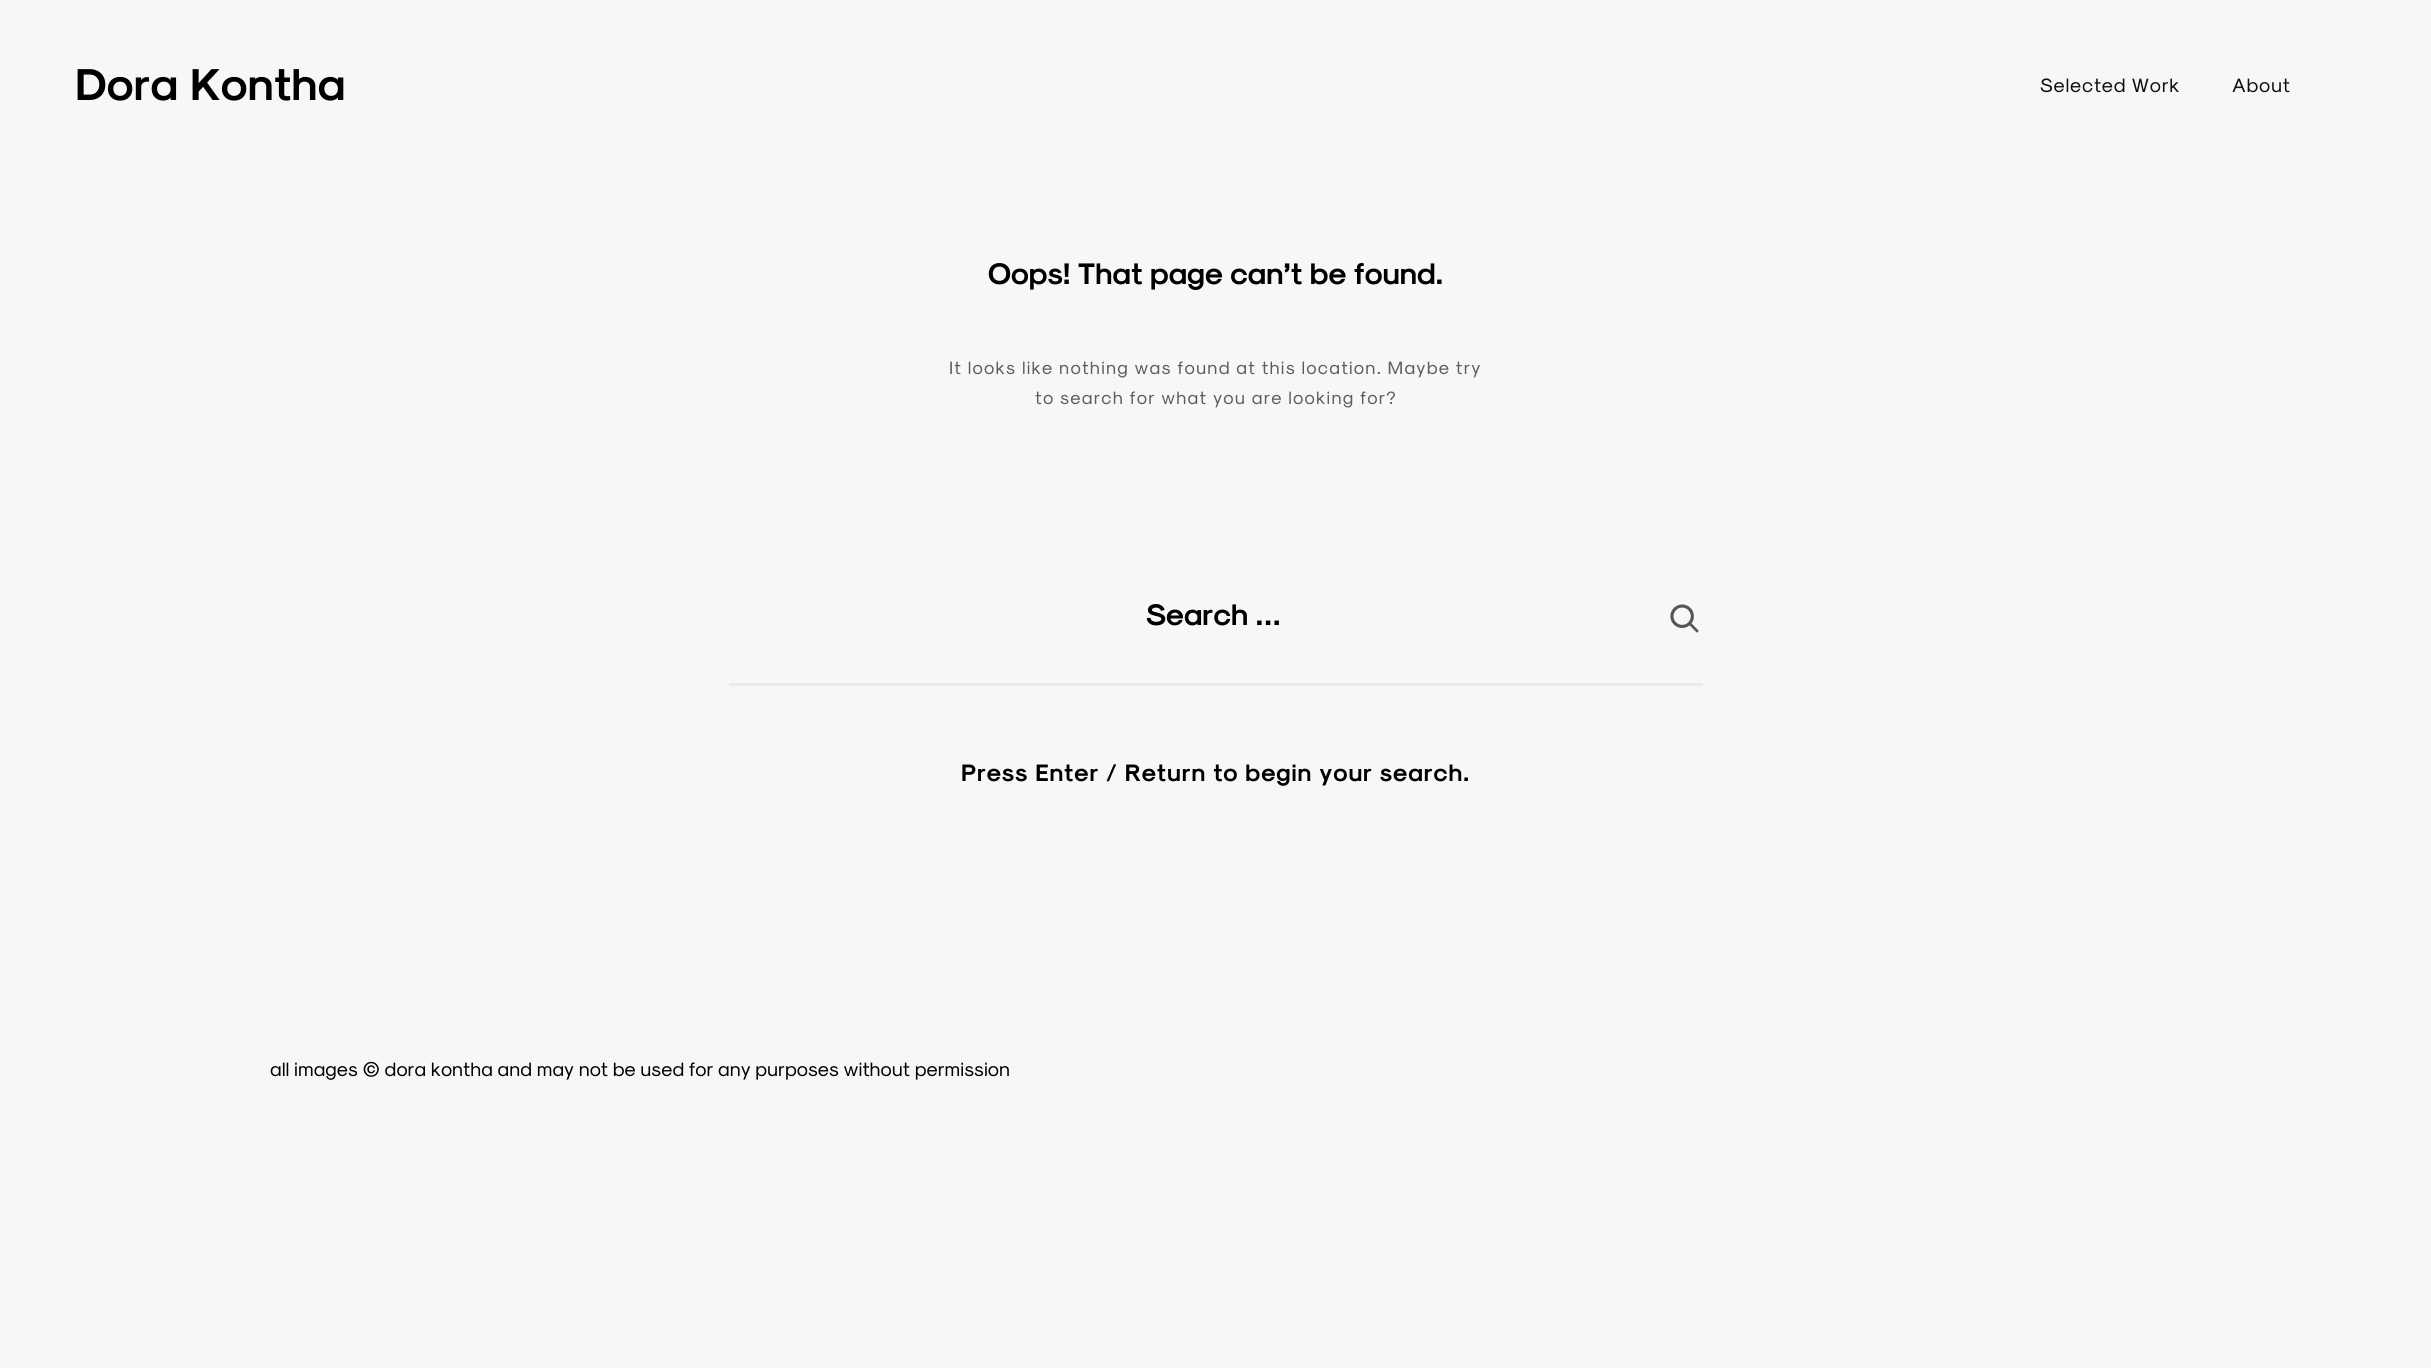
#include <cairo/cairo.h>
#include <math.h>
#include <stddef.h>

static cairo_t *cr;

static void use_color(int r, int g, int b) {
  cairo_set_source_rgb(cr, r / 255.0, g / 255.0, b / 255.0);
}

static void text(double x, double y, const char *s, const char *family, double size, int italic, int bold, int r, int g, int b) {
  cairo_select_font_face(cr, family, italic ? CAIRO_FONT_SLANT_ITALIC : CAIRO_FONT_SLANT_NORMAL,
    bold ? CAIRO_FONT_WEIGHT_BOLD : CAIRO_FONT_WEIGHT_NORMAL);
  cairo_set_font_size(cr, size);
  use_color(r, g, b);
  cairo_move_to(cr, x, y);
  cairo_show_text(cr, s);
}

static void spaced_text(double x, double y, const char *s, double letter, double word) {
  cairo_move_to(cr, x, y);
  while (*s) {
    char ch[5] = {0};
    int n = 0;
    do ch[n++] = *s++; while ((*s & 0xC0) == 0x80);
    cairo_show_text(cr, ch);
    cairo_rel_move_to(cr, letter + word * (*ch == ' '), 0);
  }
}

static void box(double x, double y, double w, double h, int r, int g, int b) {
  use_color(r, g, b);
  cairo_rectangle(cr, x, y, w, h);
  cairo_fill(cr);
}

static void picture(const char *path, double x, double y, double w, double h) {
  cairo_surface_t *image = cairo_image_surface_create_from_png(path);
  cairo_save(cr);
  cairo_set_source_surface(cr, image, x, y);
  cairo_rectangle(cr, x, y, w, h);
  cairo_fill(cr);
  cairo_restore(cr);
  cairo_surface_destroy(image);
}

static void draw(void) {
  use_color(247, 247, 245);
  cairo_paint(cr);
  box(729, 683, 974, 3, 235, 235, 235);
  picture("img_01.png", 1670, 604, 29, 29);
  cairo_select_font_face(cr, "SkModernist", CAIRO_FONT_SLANT_NORMAL, CAIRO_FONT_WEIGHT_BOLD);
  cairo_set_font_size(cr, 45);
  use_color(0, 0, 0);
  spaced_text(75, 100, "Dora Kontha", 0.25, 0);
  cairo_select_font_face(cr, "SkModernist", CAIRO_FONT_SLANT_NORMAL, CAIRO_FONT_WEIGHT_NORMAL);
  cairo_set_font_size(cr, 19.5);
  use_color(15, 15, 15);
  spaced_text(2040, 92, "Selected Work", 0.75, 0);
  spaced_text(2232, 92, "About", 0.75, 0);
  text(988, 284, "Oops! That page can’t be found.", "SkModernist", 30, 0, 1, 0, 0, 0);
  cairo_select_font_face(cr, "SkModernist", CAIRO_FONT_SLANT_NORMAL, CAIRO_FONT_WEIGHT_NORMAL);
  cairo_set_font_size(cr, 18);
  use_color(93, 93, 93);
  spaced_text(949, 374, "It looks like nothing was found at this location. Maybe try", 1.2, 0);
  spaced_text(1035, 404, "to search for what you are looking for?", 1.2, 0);
  text(1146, 625, "Search …", "SkModernist", 30, 0, 1, 0, 0, 0);
  cairo_set_font_size(cr, 24);
  spaced_text(961, 781, "Press Enter / Return to begin your search.", 0.9, 0);
  text(270, 1076, "all images © dora kontha and may not be used for any purposes without permission", "SkModernist", 19.5, 0, 0, 0, 0, 0);
}

int main(void) {
  cairo_surface_t *surface = cairo_image_surface_create(CAIRO_FORMAT_RGB24, 2431, 1368);
  cr = cairo_create(surface);
  cairo_font_options_t *options = cairo_font_options_create();
  cairo_font_options_set_hint_metrics(options, CAIRO_HINT_METRICS_OFF);
  cairo_font_options_set_hint_style(options, CAIRO_HINT_STYLE_NONE);
  cairo_set_font_options(cr, options);
  cairo_set_miter_limit(cr, 4);
  draw();
  cairo_surface_write_to_png(surface, "out.png");
  cairo_font_options_destroy(options);
  cairo_destroy(cr);
  cairo_surface_destroy(surface);
  return 0;
}
